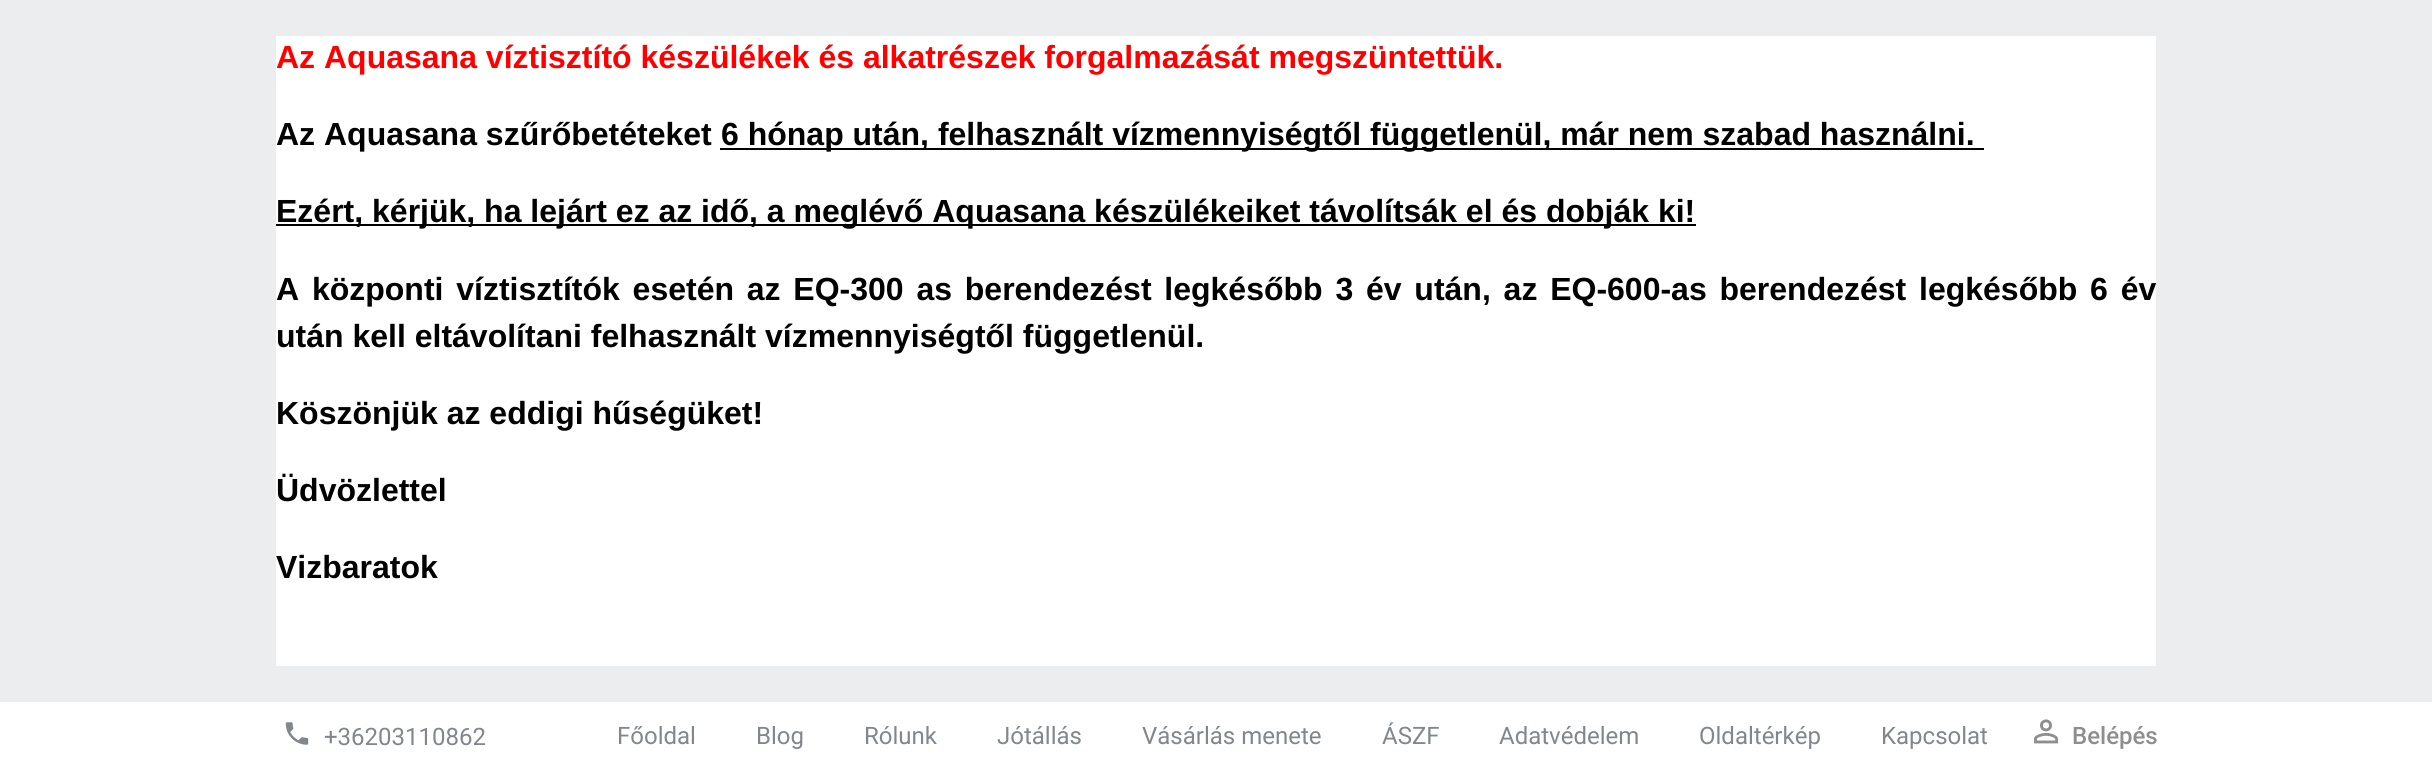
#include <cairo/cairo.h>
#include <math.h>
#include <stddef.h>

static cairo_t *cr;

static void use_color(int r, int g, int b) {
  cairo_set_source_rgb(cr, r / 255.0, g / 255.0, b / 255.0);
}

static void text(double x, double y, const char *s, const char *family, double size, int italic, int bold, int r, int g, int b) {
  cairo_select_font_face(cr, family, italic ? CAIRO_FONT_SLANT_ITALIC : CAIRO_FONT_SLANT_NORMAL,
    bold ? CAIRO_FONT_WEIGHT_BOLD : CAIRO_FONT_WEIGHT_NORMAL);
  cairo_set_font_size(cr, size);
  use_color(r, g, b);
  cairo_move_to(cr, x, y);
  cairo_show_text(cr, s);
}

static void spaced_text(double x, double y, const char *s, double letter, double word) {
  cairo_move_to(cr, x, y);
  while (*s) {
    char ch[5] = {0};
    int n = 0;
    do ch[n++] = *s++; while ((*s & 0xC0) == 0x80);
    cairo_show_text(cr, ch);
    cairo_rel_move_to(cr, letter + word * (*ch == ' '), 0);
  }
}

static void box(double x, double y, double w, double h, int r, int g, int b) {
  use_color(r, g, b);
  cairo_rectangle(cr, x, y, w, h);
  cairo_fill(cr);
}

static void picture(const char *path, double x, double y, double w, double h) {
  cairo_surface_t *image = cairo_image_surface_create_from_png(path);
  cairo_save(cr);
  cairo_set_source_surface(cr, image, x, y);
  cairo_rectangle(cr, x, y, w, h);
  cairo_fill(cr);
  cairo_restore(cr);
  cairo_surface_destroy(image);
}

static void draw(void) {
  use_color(255, 255, 255);
  cairo_paint(cr);
  box(0, 0, 2432, 702, 235, 237, 239);
  box(276, 36, 1880, 630, 255, 255, 255);
  box(720, 148, 1264, 2, 0, 0, 0);
  box(276, 224, 1420, 2, 0, 0, 0);
  picture("img_01.png", 285, 722, 24, 23);
  picture("img_02.png", 2034, 719, 24, 25);
  text(276, 68, "Az Aquasana víztisztító készülékek és alkatrészek forgalmazását megszüntettük.", "Liberation Sans", 32, 0, 1, 255, 0, 0);
  text(276, 145, "Az Aquasana szűrőbetéteket", "Liberation Sans", 32, 0, 1, 0, 0, 0);
  text(721, 145, "6 hónap után, felhasznált vízmennyiségtől függetlenül, már nem szabad használni.", "Liberation Sans", 32, 0, 1, 0, 0, 0);
  text(276, 222, "Ezért, kérjük, ha lejárt ez az idő, a meglévő Aquasana készülékeiket távolítsák el és dobják ki!", "Liberation Sans", 32, 0, 1, 0, 0, 0);
  spaced_text(276, 300, "A központi víztisztítók esetén az EQ-300 as berendezést legkésőbb 3 év után, az EQ-600-as berendezést legkésőbb 6 év", 0, 3.9);
  text(276, 347, "után kell eltávolítani felhasznált vízmennyiségtől függetlenül.", "Liberation Sans", 32, 0, 1, 0, 0, 0);
  text(276, 424, "Köszönjük az eddigi hűségüket!", "Liberation Sans", 32, 0, 1, 0, 0, 0);
  text(276, 501, "Üdvözlettel", "Liberation Sans", 32, 0, 1, 0, 0, 0);
  text(276, 578, "Vizbaratok", "Liberation Sans", 32, 0, 1, 0, 0, 0);
  text(324, 745, "+36203110862", "Roboto", 24, 0, 0, 129, 135, 141);
  text(617, 744, "Főoldal", "Roboto", 24, 0, 0, 129, 135, 141);
  text(756, 744, "Blog", "Roboto", 24, 0, 0, 129, 135, 141);
  text(864, 744, "Rólunk", "Roboto", 24, 0, 0, 129, 135, 141);
  text(997, 744, "Jótállás", "Roboto", 24, 0, 0, 129, 135, 141);
  text(1142, 744, "Vásárlás menete", "Roboto", 24, 0, 0, 129, 135, 141);
  text(1382, 744, "ÁSZF", "Roboto", 24, 0, 0, 129, 135, 141);
  text(1499, 744, "Adatvédelem", "Roboto", 24, 0, 0, 129, 135, 141);
  text(1699, 744, "Oldaltérkép", "Roboto", 24, 0, 0, 129, 135, 141);
  text(1881, 744, "Kapcsolat", "Roboto", 24, 0, 0, 129, 135, 141);
  text(2072, 744, "Belépés", "Roboto Medium", 24, 0, 0, 142, 142, 142);
}

int main(void) {
  cairo_surface_t *surface = cairo_image_surface_create(CAIRO_FORMAT_RGB24, 2432, 761);
  cr = cairo_create(surface);
  cairo_font_options_t *options = cairo_font_options_create();
  cairo_font_options_set_hint_metrics(options, CAIRO_HINT_METRICS_OFF);
  cairo_font_options_set_hint_style(options, CAIRO_HINT_STYLE_NONE);
  cairo_set_font_options(cr, options);
  cairo_set_miter_limit(cr, 4);
  draw();
  cairo_surface_write_to_png(surface, "out.png");
  cairo_font_options_destroy(options);
  cairo_destroy(cr);
  cairo_surface_destroy(surface);
  return 0;
}
